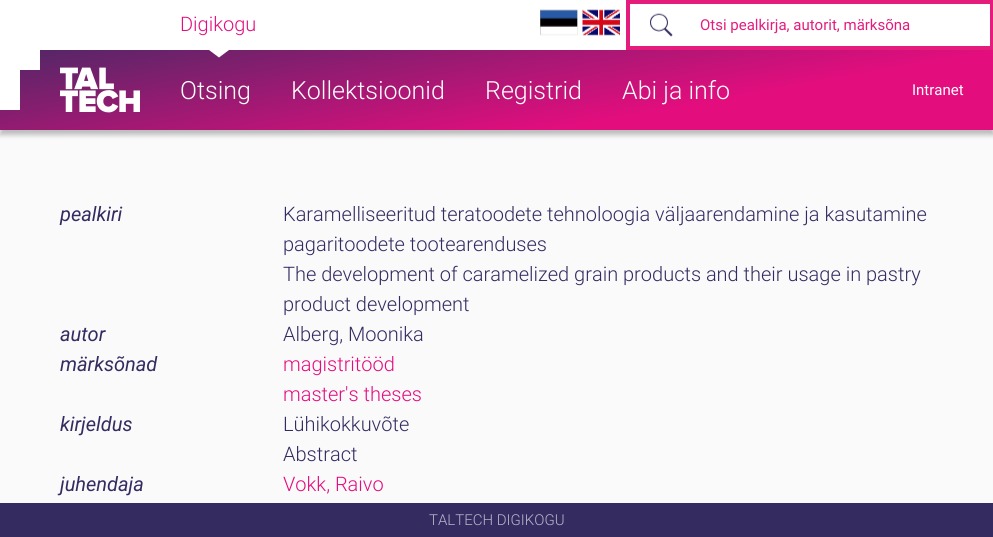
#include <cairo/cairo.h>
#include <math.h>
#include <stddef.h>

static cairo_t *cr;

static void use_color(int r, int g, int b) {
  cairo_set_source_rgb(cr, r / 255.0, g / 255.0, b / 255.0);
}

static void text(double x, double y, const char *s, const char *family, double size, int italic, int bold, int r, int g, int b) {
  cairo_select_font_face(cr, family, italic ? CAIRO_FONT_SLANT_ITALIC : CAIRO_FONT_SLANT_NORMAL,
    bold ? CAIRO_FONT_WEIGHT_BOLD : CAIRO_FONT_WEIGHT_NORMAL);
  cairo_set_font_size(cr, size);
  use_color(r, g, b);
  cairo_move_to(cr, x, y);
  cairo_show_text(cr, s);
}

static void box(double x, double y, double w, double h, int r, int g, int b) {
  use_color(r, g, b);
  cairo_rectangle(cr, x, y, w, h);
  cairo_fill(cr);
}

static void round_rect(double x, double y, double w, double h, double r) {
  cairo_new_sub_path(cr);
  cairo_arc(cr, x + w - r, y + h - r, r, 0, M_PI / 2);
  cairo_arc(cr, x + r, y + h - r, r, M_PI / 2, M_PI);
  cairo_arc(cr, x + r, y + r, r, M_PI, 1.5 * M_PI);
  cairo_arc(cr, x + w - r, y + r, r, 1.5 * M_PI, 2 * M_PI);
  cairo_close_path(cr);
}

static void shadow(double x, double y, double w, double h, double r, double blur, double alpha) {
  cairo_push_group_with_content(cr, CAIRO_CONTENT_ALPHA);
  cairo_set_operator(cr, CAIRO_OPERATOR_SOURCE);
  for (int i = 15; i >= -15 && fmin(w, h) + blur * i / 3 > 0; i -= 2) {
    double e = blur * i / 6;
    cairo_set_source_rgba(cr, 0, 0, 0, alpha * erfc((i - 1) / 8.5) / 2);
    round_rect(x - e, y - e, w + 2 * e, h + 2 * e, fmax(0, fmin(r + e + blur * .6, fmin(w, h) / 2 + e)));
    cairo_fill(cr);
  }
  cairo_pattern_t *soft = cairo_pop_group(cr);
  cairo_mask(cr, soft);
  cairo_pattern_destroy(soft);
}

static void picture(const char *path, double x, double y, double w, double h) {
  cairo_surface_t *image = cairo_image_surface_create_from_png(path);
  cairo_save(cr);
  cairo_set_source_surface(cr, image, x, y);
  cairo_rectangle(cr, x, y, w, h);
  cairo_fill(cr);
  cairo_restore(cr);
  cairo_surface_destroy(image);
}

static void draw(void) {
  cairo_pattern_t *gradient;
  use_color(251, 250, 251);
  cairo_paint(cr);
  box(0, 0, 626, 50, 255, 255, 255);
  use_color(0, 0, 0);
  shadow(0, 55, 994, 80, 0, 2.5, 0.25);
  gradient = cairo_pattern_create_linear(475, -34, 519, 214);
  cairo_pattern_add_color_stop_rgba(gradient, 0, 0.318, 0.153, 0.4, 1);
  cairo_pattern_add_color_stop_rgba(gradient, 0.7, 0.894, 0.051, 0.494, 1);
  cairo_set_source(cr, gradient);
  cairo_pattern_destroy(gradient);
  cairo_rectangle(cr, 0, 50, 993, 80);
  cairo_fill(cr);
  use_color(255, 255, 255);
  cairo_new_path(cr);
  cairo_move_to(cr, 209, 50);
  cairo_line_to(cr, 229, 50);
  cairo_line_to(cr, 219, 57.5);
  cairo_close_path(cr);
  cairo_fill(cr);
  picture("img_01.png", 540, 9, 38, 27);
  picture("img_02.png", 582, 9, 38, 27);
  box(626, 0, 367, 50, 228, 29, 125);
  box(630, 4, 360, 42, 255, 255, 255);
  picture("img_03.png", 650, 13, 23, 24);
  box(0, 50, 40, 20, 255, 255, 255);
  box(0, 70, 20, 40, 255, 255, 255);
  picture("img_04.png", 60, 67, 80, 46);
  box(0, 503, 993, 34, 52, 44, 97);
  text(180, 31, "Digikogu", "Roboto Light", 20, 0, 0, 228, 13, 126);
  text(700, 30, "Otsi pealkirja, autorit, märksõna", "Roboto", 15, 0, 0, 228, 29, 125);
  text(180, 99, "Otsing", "Roboto Light", 25, 0, 0, 255, 255, 255);
  text(291, 99, "Kollektsioonid", "Roboto Light", 25, 0, 0, 255, 255, 255);
  text(485, 99, "Registrid", "Roboto Light", 25, 0, 0, 255, 255, 255);
  text(622, 99, "Abi ja info", "Roboto Light", 25, 0, 0, 255, 255, 255);
  text(912, 95, "Intranet", "Roboto", 15, 0, 0, 255, 255, 255);
  text(60, 221, "pealkiri", "Roboto", 20, 1, 0, 52, 44, 97);
  text(283, 221, "Karamelliseeritud teratoodete tehnoloogia väljaarendamine ja kasutamine", "Roboto Light", 20, 0, 0, 52, 44, 97);
  text(283, 251, "pagaritoodete tootearenduses", "Roboto Light", 20, 0, 0, 52, 44, 97);
  text(283, 281, "The development of caramelized grain products and their usage in pastry", "Roboto Light", 20, 0, 0, 52, 44, 97);
  text(283, 311, "product development", "Roboto Light", 20, 0, 0, 52, 44, 97);
  text(60, 341, "autor", "Roboto", 20, 1, 0, 52, 44, 97);
  text(283, 341, "Alberg, Moonika", "Roboto Light", 20, 0, 0, 52, 44, 97);
  text(60, 371, "märksõnad", "Roboto", 20, 1, 0, 52, 44, 97);
  text(283, 371, "magistritööd", "Roboto Light", 20, 0, 0, 228, 13, 126);
  text(283, 401, "master's theses", "Roboto Light", 20, 0, 0, 228, 13, 126);
  text(60, 431, "kirjeldus", "Roboto", 20, 1, 0, 52, 44, 97);
  text(283, 431, "Lühikokkuvõte", "Roboto Light", 20, 0, 0, 52, 44, 97);
  text(283, 461, "Abstract", "Roboto Light", 20, 0, 0, 52, 44, 97);
  text(60, 491, "juhendaja", "Roboto", 20, 1, 0, 52, 44, 97);
  text(283, 491, "Vokk, Raivo", "Roboto Light", 20, 0, 0, 228, 13, 126);
  text(429, 525, "TALTECH DIGIKOGU", "Roboto Light", 15, 0, 0, 184, 181, 200);
}

int main(void) {
  cairo_surface_t *surface = cairo_image_surface_create(CAIRO_FORMAT_RGB24, 993, 537);
  cr = cairo_create(surface);
  cairo_font_options_t *options = cairo_font_options_create();
  cairo_font_options_set_hint_metrics(options, CAIRO_HINT_METRICS_OFF);
  cairo_font_options_set_hint_style(options, CAIRO_HINT_STYLE_NONE);
  cairo_set_font_options(cr, options);
  cairo_set_miter_limit(cr, 4);
  draw();
  cairo_surface_write_to_png(surface, "out.png");
  cairo_font_options_destroy(options);
  cairo_destroy(cr);
  cairo_surface_destroy(surface);
  return 0;
}
